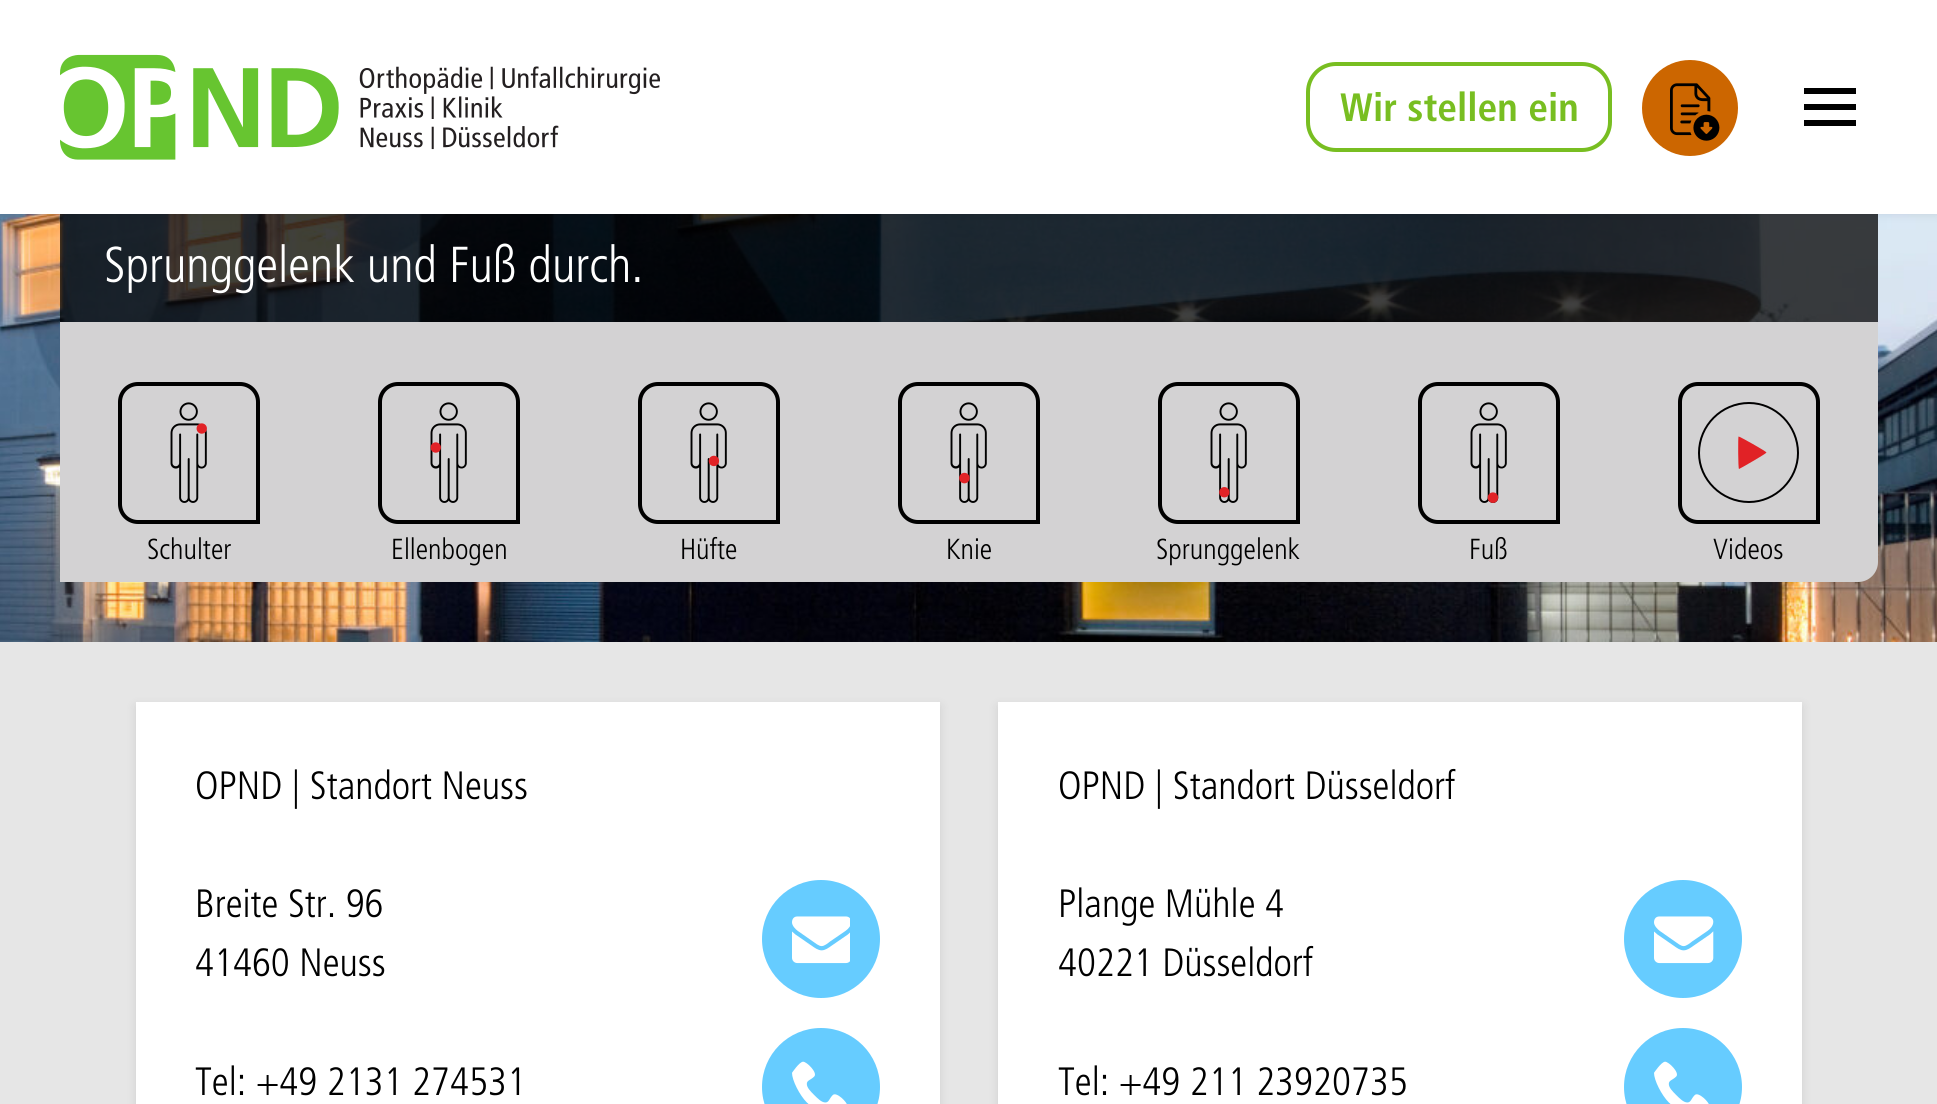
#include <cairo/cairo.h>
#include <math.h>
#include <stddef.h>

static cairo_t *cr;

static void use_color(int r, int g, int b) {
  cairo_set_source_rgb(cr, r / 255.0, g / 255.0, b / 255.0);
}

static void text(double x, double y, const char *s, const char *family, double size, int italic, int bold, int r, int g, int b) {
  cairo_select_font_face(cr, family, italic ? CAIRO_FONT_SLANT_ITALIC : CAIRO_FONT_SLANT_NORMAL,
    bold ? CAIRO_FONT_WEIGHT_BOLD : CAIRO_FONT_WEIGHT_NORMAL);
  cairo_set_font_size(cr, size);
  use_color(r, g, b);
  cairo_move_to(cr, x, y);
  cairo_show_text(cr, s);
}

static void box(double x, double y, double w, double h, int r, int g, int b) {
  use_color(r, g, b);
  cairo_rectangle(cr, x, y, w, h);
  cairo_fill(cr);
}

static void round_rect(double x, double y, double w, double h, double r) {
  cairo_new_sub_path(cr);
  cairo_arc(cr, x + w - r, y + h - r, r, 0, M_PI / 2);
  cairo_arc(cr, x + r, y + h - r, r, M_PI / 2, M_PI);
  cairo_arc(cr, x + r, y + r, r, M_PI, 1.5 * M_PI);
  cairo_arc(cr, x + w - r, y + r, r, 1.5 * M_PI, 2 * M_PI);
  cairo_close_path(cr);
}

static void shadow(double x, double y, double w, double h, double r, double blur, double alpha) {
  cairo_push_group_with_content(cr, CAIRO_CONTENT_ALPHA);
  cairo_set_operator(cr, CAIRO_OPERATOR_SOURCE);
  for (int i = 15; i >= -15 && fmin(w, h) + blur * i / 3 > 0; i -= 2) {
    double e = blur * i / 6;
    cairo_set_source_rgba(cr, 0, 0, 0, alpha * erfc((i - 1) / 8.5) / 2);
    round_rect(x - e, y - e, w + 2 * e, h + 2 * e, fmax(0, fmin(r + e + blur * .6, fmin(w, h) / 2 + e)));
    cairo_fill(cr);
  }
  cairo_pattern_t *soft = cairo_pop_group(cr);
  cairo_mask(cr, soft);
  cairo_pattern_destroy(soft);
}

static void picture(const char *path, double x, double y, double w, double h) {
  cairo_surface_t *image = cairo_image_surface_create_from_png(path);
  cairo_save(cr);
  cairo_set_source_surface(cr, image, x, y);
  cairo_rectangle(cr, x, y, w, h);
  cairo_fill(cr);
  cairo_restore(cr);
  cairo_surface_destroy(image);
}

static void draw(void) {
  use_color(230, 230, 230);
  cairo_paint(cr);
  picture("img_03.png", 0, 214, 1937, 428);
  cairo_set_source_rgba(cr, 0, 0, 0, 0.75);
  cairo_rectangle(cr, 60, 214, 1818, 108);
  cairo_fill(cr);
  use_color(0, 0, 0);
  shadow(0, 0, 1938, 214, 0, 5, 0.1);
  box(0, 0, 1937, 214, 255, 255, 255);
  picture("img_01.png", 60, 54, 600, 106);
  round_rect(1308, 64, 302, 86, 28);
  use_color(120, 190, 33);
  cairo_set_line_width(cr, 4);
  cairo_stroke(cr);
  use_color(204, 102, 0);
  cairo_arc(cr, 1690, 108, 48, 0, 2 * M_PI);
  cairo_fill(cr);
  picture("img_02.png", 1670, 83, 50, 58);
  box(1804, 104, 52, 6, 0, 0, 0);
  box(1804, 88, 52, 6, 0, 0, 0);
  box(1804, 120, 52, 6, 0, 0, 0);
  use_color(211, 210, 211);
  cairo_new_path(cr);
  cairo_move_to(cr, 60, 322);
  cairo_line_to(cr, 1878, 322);
  cairo_line_to(cr, 1878, 562);
  cairo_curve_to(cr, 1878, 573, 1869, 582, 1858, 582);
  cairo_line_to(cr, 60, 582);
  cairo_close_path(cr);
  cairo_fill(cr);
  cairo_new_path(cr);
  cairo_move_to(cr, 138, 384);
  cairo_line_to(cr, 240, 384);
  cairo_curve_to(cr, 250, 384, 258, 392, 258, 402);
  cairo_line_to(cr, 258, 522);
  cairo_line_to(cr, 138, 522);
  cairo_curve_to(cr, 128, 522, 120, 514, 120, 504);
  cairo_line_to(cr, 120, 402);
  cairo_curve_to(cr, 120, 392, 128, 384, 138, 384);
  cairo_close_path(cr);
  use_color(0, 0, 0);
  cairo_stroke(cr);
  picture("img_04.png", 170, 402, 37, 101);
  cairo_new_path(cr);
  cairo_move_to(cr, 398, 384);
  cairo_line_to(cr, 500, 384);
  cairo_curve_to(cr, 510, 384, 518, 392, 518, 402);
  cairo_line_to(cr, 518, 522);
  cairo_line_to(cr, 398, 522);
  cairo_curve_to(cr, 388, 522, 380, 514, 380, 504);
  cairo_line_to(cr, 380, 402);
  cairo_curve_to(cr, 380, 392, 388, 384, 398, 384);
  cairo_close_path(cr);
  cairo_stroke(cr);
  picture("img_05.png", 430, 402, 37, 101);
  cairo_new_path(cr);
  cairo_move_to(cr, 658, 384);
  cairo_line_to(cr, 760, 384);
  cairo_curve_to(cr, 770, 384, 778, 392, 778, 402);
  cairo_line_to(cr, 778, 522);
  cairo_line_to(cr, 658, 522);
  cairo_curve_to(cr, 648, 522, 640, 514, 640, 504);
  cairo_line_to(cr, 640, 402);
  cairo_curve_to(cr, 640, 392, 648, 384, 658, 384);
  cairo_close_path(cr);
  cairo_stroke(cr);
  picture("img_06.png", 690, 402, 37, 101);
  cairo_new_path(cr);
  cairo_move_to(cr, 918, 384);
  cairo_line_to(cr, 1020, 384);
  cairo_curve_to(cr, 1030, 384, 1038, 392, 1038, 402);
  cairo_line_to(cr, 1038, 522);
  cairo_line_to(cr, 918, 522);
  cairo_curve_to(cr, 908, 522, 900, 514, 900, 504);
  cairo_line_to(cr, 900, 402);
  cairo_curve_to(cr, 900, 392, 908, 384, 918, 384);
  cairo_close_path(cr);
  cairo_stroke(cr);
  picture("img_07.png", 950, 402, 37, 101);
  cairo_new_path(cr);
  cairo_move_to(cr, 1178, 384);
  cairo_line_to(cr, 1280, 384);
  cairo_curve_to(cr, 1290, 384, 1298, 392, 1298, 402);
  cairo_line_to(cr, 1298, 522);
  cairo_line_to(cr, 1178, 522);
  cairo_curve_to(cr, 1168, 522, 1160, 514, 1160, 504);
  cairo_line_to(cr, 1160, 402);
  cairo_curve_to(cr, 1160, 392, 1168, 384, 1178, 384);
  cairo_close_path(cr);
  cairo_stroke(cr);
  picture("img_08.png", 1210, 402, 37, 101);
  cairo_new_path(cr);
  cairo_move_to(cr, 1438, 384);
  cairo_line_to(cr, 1540, 384);
  cairo_curve_to(cr, 1550, 384, 1558, 392, 1558, 402);
  cairo_line_to(cr, 1558, 522);
  cairo_line_to(cr, 1438, 522);
  cairo_curve_to(cr, 1428, 522, 1420, 514, 1420, 504);
  cairo_line_to(cr, 1420, 402);
  cairo_curve_to(cr, 1420, 392, 1428, 384, 1438, 384);
  cairo_close_path(cr);
  cairo_stroke(cr);
  picture("img_09.png", 1470, 402, 37, 101);
  cairo_new_path(cr);
  cairo_move_to(cr, 1698, 384);
  cairo_line_to(cr, 1800, 384);
  cairo_curve_to(cr, 1810, 384, 1818, 392, 1818, 402);
  cairo_line_to(cr, 1818, 522);
  cairo_line_to(cr, 1698, 522);
  cairo_curve_to(cr, 1688, 522, 1680, 514, 1680, 504);
  cairo_line_to(cr, 1680, 402);
  cairo_curve_to(cr, 1680, 392, 1688, 384, 1698, 384);
  cairo_close_path(cr);
  cairo_stroke(cr);
  cairo_new_path(cr);
  cairo_move_to(cr, 1749, 402);
  cairo_curve_to(cr, 1721, 402, 1698, 425, 1698, 453);
  cairo_curve_to(cr, 1698, 480, 1721, 503, 1749, 503);
  cairo_curve_to(cr, 1776, 503, 1799, 480, 1799, 453);
  cairo_curve_to(cr, 1799, 425, 1776, 402, 1749, 402);
  cairo_close_path(cr);
  cairo_move_to(cr, 1749, 404);
  cairo_curve_to(cr, 1775, 404, 1797, 426, 1797, 453);
  cairo_curve_to(cr, 1797, 479, 1775, 501, 1749, 501);
  cairo_curve_to(cr, 1722, 501, 1700, 479, 1700, 453);
  cairo_curve_to(cr, 1700, 426, 1722, 404, 1749, 404);
  cairo_close_path(cr);
  cairo_fill(cr);
  use_color(225, 34, 38);
  cairo_new_path(cr);
  cairo_move_to(cr, 1739, 469);
  cairo_curve_to(cr, 1738, 468.5, 1738, 437, 1738.5, 436.5);
  cairo_curve_to(cr, 1739, 436, 1766.5, 451.5, 1766.5, 452.5);
  cairo_curve_to(cr, 1766.5, 453.5, 1739.5, 469, 1739, 469);
  cairo_close_path(cr);
  cairo_fill(cr);
  use_color(0, 0, 0);
  shadow(136, 706, 804, 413, 0, 5, 0.1);
  box(136, 702, 804, 402, 255, 255, 255);
  use_color(102, 204, 255);
  cairo_arc(cr, 821, 939, 59, 0, 2 * M_PI);
  cairo_fill(cr);
  picture("img_10.png", 792, 916, 58, 48);
  cairo_arc(cr, 821, 1087, 59, 0, 2 * M_PI);
  cairo_fill(cr);
  picture("img_11.png", 792, 1061, 55, 43);
  use_color(0, 0, 0);
  shadow(998, 706, 804, 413, 0, 5, 0.1);
  box(998, 702, 804, 402, 255, 255, 255);
  use_color(102, 204, 255);
  cairo_arc(cr, 1683, 939, 59, 0, 2 * M_PI);
  cairo_fill(cr);
  picture("img_12.png", 1654, 916, 60, 48);
  cairo_arc(cr, 1683, 1087, 59, 0, 2 * M_PI);
  cairo_fill(cr);
  picture("img_11.png", 1654, 1061, 55, 43);
  text(1340, 121, "Wir stellen ein", "Frutiger", 39.5, 0, 1, 120, 190, 33);
  text(104, 282, "Sprunggelenk und Fuß durch.", "Frutiger Light", 50.5, 0, 0, 255, 255, 255);
  text(147, 559, "Schulter", "Frutiger Light", 29, 0, 0, 0, 0, 0);
  text(391, 559, "Ellenbogen", "Frutiger Light", 29, 0, 0, 0, 0, 0);
  text(680, 559, "Hüfte", "Frutiger Light", 29, 0, 0, 0, 0, 0);
  text(946, 559, "Knie", "Frutiger Light", 29, 0, 0, 0, 0, 0);
  text(1156, 559, "Sprunggelenk", "Frutiger Light", 29, 0, 0, 0, 0, 0);
  text(1469, 559, "Fuß", "Frutiger Light", 29, 0, 0, 0, 0, 0);
  text(1713, 559, "Videos", "Frutiger Light", 29, 0, 0, 0, 0, 0);
  text(195, 799, "OPND | Standort Neuss", "Frutiger Light", 39.5, 0, 0, 0, 0, 0);
  text(195, 917, "Breite Str. 96", "Frutiger Light", 39.5, 0, 0, 0, 0, 0);
  text(195, 976, "41460 Neuss", "Frutiger Light", 39.5, 0, 0, 0, 0, 0);
  text(195, 1095, "Tel: +49 2131 274531", "Frutiger Light", 39.5, 0, 0, 0, 0, 0);
  text(1058, 799, "OPND | Standort Düsseldorf", "Frutiger Light", 39.5, 0, 0, 0, 0, 0);
  text(1058, 917, "Plange Mühle 4", "Frutiger Light", 39.5, 0, 0, 0, 0, 0);
  text(1058, 976, "40221 Düsseldorf", "Frutiger Light", 39.5, 0, 0, 0, 0, 0);
  text(1058, 1095, "Tel: +49 211 23920735", "Frutiger Light", 39.5, 0, 0, 0, 0, 0);
}

int main(void) {
  cairo_surface_t *surface = cairo_image_surface_create(CAIRO_FORMAT_RGB24, 1937, 1104);
  cr = cairo_create(surface);
  cairo_font_options_t *options = cairo_font_options_create();
  cairo_font_options_set_hint_metrics(options, CAIRO_HINT_METRICS_OFF);
  cairo_font_options_set_hint_style(options, CAIRO_HINT_STYLE_NONE);
  cairo_set_font_options(cr, options);
  cairo_set_miter_limit(cr, 4);
  draw();
  cairo_surface_write_to_png(surface, "out.png");
  cairo_font_options_destroy(options);
  cairo_destroy(cr);
  cairo_surface_destroy(surface);
  return 0;
}
